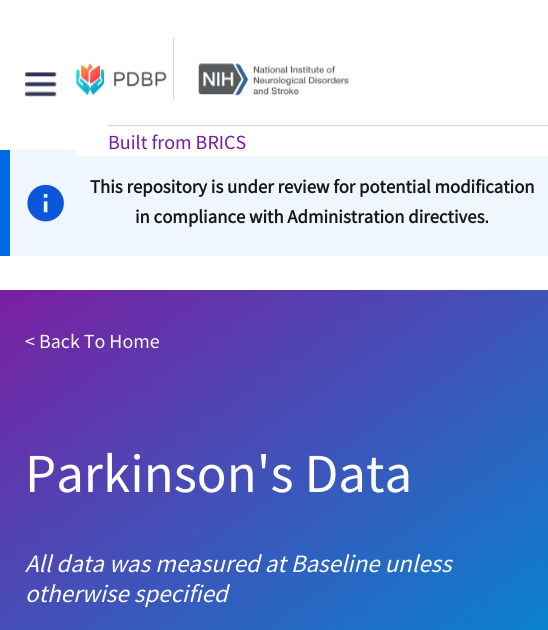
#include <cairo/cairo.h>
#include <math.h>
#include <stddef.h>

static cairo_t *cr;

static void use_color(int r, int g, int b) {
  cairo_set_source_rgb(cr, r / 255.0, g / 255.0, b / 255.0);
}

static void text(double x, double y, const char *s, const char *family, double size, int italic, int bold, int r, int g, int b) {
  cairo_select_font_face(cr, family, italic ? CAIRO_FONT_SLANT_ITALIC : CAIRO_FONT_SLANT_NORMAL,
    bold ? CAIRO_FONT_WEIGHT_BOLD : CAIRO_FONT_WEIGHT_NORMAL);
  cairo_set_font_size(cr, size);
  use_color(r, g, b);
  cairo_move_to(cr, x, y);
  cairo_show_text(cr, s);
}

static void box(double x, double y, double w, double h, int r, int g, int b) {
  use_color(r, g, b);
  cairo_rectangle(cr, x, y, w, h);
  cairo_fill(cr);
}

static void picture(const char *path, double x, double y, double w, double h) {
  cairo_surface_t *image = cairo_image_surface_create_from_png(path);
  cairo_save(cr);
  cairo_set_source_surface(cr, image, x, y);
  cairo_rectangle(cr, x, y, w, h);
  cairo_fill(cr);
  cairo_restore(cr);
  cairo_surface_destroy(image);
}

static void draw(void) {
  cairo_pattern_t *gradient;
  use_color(255, 255, 255);
  cairo_paint(cr);
  picture("img_01.png", 25, 72, 32, 25);
  box(10, 150, 538, 106, 239, 246, 254);
  box(76, 150, 472, 6, 255, 255, 255);
  picture("img_02.png", 76, 63, 91, 33);
  box(173, 38, 1, 62, 218, 218, 218);
  picture("img_03.png", 198, 63, 151, 33);
  box(108, 125, 440, 1, 196, 219, 237);
  picture("img_04.png", 27, 184, 37, 38);
  box(0, 150, 10, 106, 0, 106, 227);
  gradient = cairo_pattern_create_linear(93, 225, 455, 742);
  cairo_pattern_add_color_stop_rgba(gradient, 0, 0.482, 0.122, 0.635, 1);
  cairo_pattern_add_color_stop_rgba(gradient, 1, 0.008, 0.533, 0.82, 1);
  cairo_set_source(cr, gradient);
  cairo_pattern_destroy(gradient);
  cairo_rectangle(cr, 0, 290, 548, 340);
  cairo_fill(cr);
  text(108, 149, "Built from BRICS", "Source Sans Pro", 20, 0, 0, 117, 29, 154);
  text(90, 193, "This repository is under review for potential modification", "Source Sans Pro", 18.75, 0, 1, 23, 23, 23);
  text(135, 223, "in compliance with Administration directives.", "Source Sans Pro", 18.75, 0, 1, 23, 23, 23);
  text(25, 348, "< Back To Home", "Source Sans Pro", 20, 0, 0, 255, 255, 255);
  text(25, 492, "Parkinson's Data", "Source Sans Pro", 55, 0, 0, 255, 255, 255);
  text(25, 572, "All data was measured at Baseline unless", "Source Sans Pro", 25, 1, 0, 255, 255, 255);
  text(25, 602, "otherwise specified", "Source Sans Pro", 25, 1, 0, 255, 255, 255);
}

int main(void) {
  cairo_surface_t *surface = cairo_image_surface_create(CAIRO_FORMAT_RGB24, 548, 630);
  cr = cairo_create(surface);
  cairo_font_options_t *options = cairo_font_options_create();
  cairo_font_options_set_hint_metrics(options, CAIRO_HINT_METRICS_OFF);
  cairo_font_options_set_hint_style(options, CAIRO_HINT_STYLE_NONE);
  cairo_set_font_options(cr, options);
  cairo_set_miter_limit(cr, 4);
  draw();
  cairo_surface_write_to_png(surface, "out.png");
  cairo_font_options_destroy(options);
  cairo_destroy(cr);
  cairo_surface_destroy(surface);
  return 0;
}
